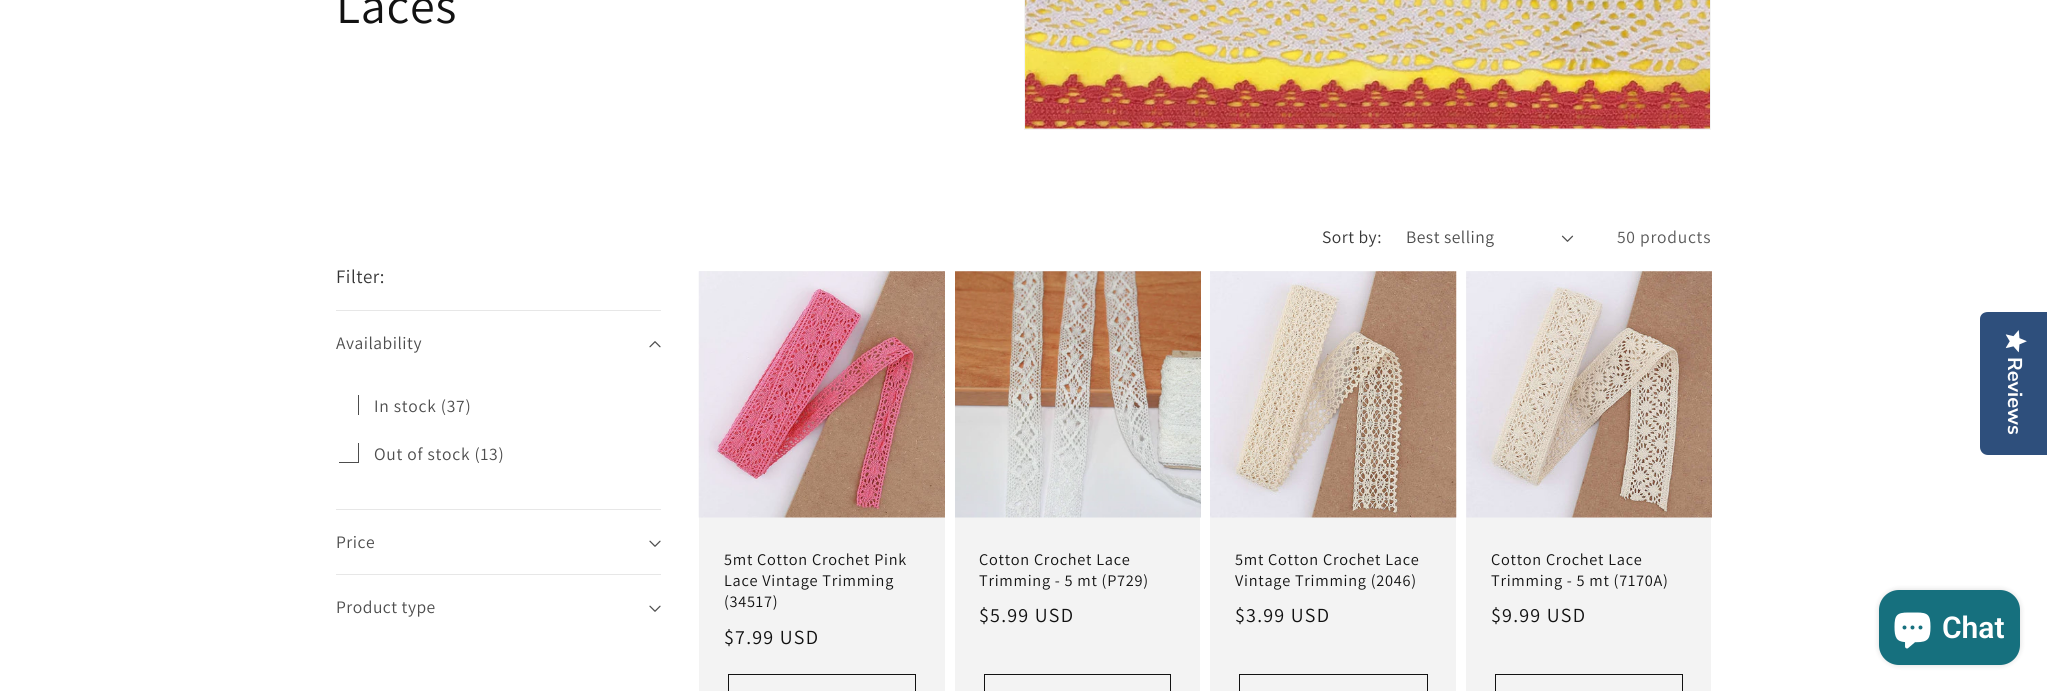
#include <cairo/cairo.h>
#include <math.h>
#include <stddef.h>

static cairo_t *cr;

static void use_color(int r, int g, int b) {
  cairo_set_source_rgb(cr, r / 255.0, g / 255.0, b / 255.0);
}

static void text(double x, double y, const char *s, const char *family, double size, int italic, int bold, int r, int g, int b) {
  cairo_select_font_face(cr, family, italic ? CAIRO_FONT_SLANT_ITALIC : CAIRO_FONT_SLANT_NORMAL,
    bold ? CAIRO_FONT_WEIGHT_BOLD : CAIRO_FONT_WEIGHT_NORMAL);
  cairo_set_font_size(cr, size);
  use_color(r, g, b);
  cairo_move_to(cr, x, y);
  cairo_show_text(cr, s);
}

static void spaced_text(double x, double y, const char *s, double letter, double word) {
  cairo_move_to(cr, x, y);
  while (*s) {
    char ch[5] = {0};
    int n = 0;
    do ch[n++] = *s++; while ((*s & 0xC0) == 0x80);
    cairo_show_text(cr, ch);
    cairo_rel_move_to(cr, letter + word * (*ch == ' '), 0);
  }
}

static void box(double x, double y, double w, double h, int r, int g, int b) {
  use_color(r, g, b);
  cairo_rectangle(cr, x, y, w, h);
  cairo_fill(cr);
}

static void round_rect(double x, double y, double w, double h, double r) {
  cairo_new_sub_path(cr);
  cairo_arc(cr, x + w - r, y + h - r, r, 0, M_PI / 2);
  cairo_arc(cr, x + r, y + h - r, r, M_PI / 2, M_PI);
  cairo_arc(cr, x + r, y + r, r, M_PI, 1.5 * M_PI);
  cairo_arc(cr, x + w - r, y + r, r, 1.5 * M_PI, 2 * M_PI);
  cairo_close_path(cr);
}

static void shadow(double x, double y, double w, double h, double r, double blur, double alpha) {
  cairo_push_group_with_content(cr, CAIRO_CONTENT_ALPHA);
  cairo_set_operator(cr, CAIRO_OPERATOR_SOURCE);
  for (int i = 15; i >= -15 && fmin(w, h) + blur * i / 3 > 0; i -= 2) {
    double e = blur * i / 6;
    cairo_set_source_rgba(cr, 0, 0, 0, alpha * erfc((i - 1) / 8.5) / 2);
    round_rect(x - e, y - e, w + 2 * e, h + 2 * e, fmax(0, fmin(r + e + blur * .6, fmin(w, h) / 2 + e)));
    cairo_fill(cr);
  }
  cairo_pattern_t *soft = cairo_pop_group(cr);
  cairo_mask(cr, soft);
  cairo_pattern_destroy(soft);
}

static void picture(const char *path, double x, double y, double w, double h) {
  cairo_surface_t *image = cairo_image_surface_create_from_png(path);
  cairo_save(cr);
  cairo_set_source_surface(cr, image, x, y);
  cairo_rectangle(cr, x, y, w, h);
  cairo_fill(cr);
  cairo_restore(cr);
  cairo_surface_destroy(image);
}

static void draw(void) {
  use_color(255, 255, 255);
  cairo_paint(cr);
  cairo_rectangle(cr, 1024.5, -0.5, 686, 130);
  use_color(243, 243, 243);
  cairo_set_line_width(cr, 1);
  cairo_stroke(cr);
  picture("img_01.png", 1025, 0, 685, 129);
  picture("img_02.png", 1561, 235, 13, 7);
  box(336, 310, 325, 1, 231, 231, 231);
  picture("img_03.png", 649, 341, 12, 7);
  cairo_save(cr);
  cairo_rectangle(cr, 339, 395, 20, 20);
  cairo_clip(cr);
  cairo_rectangle(cr, 338.5, 394.5, 20, 21);
  use_color(77, 77, 77);
  cairo_stroke(cr);
  cairo_restore(cr);
  cairo_save(cr);
  cairo_rectangle(cr, 339, 443, 20, 20);
  cairo_clip(cr);
  cairo_rectangle(cr, 338.5, 442.5, 20, 20);
  use_color(77, 77, 77);
  cairo_stroke(cr);
  cairo_restore(cr);
  box(336, 509, 325, 1, 231, 231, 231);
  picture("img_04.png", 649, 540, 12, 7);
  box(336, 574, 325, 1, 231, 231, 231);
  picture("img_04.png", 649, 605, 12, 7);
  box(699, 271, 246, 420, 243, 243, 243);
  picture("img_05.png", 698, 271, 247, 247);
  cairo_rectangle(cr, 728.5, 674.5, 187, 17);
  use_color(18, 18, 18);
  cairo_stroke(cr);
  box(955, 271, 245, 420, 243, 243, 243);
  picture("img_06.png", 955, 271, 246, 247);
  cairo_rectangle(cr, 984.5, 674.5, 186, 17);
  use_color(18, 18, 18);
  cairo_stroke(cr);
  box(1210, 271, 246, 420, 243, 243, 243);
  picture("img_07.png", 1210, 271, 247, 247);
  cairo_rectangle(cr, 1239.5, 674.5, 188, 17);
  use_color(18, 18, 18);
  cairo_stroke(cr);
  box(1466, 271, 245, 420, 243, 243, 243);
  picture("img_08.png", 1466, 271, 246, 247);
  cairo_rectangle(cr, 1495.5, 674.5, 187, 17);
  use_color(18, 18, 18);
  cairo_stroke(cr);
  use_color(46, 79, 124);
  cairo_new_path(cr);
  cairo_move_to(cr, 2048, 312);
  cairo_line_to(cr, 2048, 455);
  cairo_line_to(cr, 1988, 455);
  cairo_curve_to(cr, 1983, 455, 1980, 451, 1980, 447);
  cairo_line_to(cr, 1980, 319);
  cairo_curve_to(cr, 1980, 315, 1983, 312, 1988, 312);
  cairo_close_path(cr);
  cairo_fill(cr);
  picture("img_09.png", 2005, 330, 22, 23);
  use_color(0, 0, 0);
  shadow(1879, 590, 141, 75, 20, 3, 0.15);
  use_color(22, 112, 126);
  round_rect(1879, 590, 141, 75, 20);
  cairo_fill(cr);
  picture("img_10.png", 1894, 612, 37, 37);
  cairo_select_font_face(cr, "Assistant", CAIRO_FONT_SLANT_NORMAL, CAIRO_FONT_WEIGHT_NORMAL);
  cairo_set_font_size(cr, 50);
  use_color(18, 18, 18);
  spaced_text(336, 23, "Laces", 0.75, 0);
  cairo_set_font_size(cr, 17.5);
  use_color(54, 54, 54);
  spaced_text(1322, 243, "Sort by:", 0.5, 0);
  use_color(77, 77, 77);
  spaced_text(1406, 243, "Best selling", 0.5, 0);
  use_color(89, 89, 89);
  spaced_text(1617, 243, "50 products", 0.75, 0);
  cairo_set_font_size(cr, 19);
  use_color(54, 54, 54);
  spaced_text(336, 283, "Filter:", 0.5, 0);
  cairo_set_font_size(cr, 17.5);
  use_color(77, 77, 77);
  spaced_text(336, 349, "Availability", 0.5, 0);
  spaced_text(374, 412, "In stock (37)", 0.75, 0);
  spaced_text(374, 460, "Out of stock (13)", 0.75, 0);
  spaced_text(336, 548, "Price", 0.5, 0);
  spaced_text(336, 613, "Product type", 0.5, 0);
  cairo_set_font_size(cr, 16.25);
  use_color(18, 18, 18);
  spaced_text(724, 565, "5mt Cotton Crochet Pink", 0.75, 0);
  spaced_text(724, 586, "Lace Vintage Trimming", 0.75, 0);
  spaced_text(724, 607, "(34517)", 0.75, 0);
  cairo_set_font_size(cr, 20);
  spaced_text(724, 644, "$7.99 USD", 1.25, 0);
  cairo_set_font_size(cr, 16.25);
  spaced_text(979, 565, "Cotton Crochet Lace", 0.75, 0);
  spaced_text(979, 586, "Trimming - 5 mt (P729)", 0.75, 0);
  cairo_set_font_size(cr, 20);
  spaced_text(979, 622, "$5.99 USD", 1.25, 0);
  cairo_set_font_size(cr, 16.25);
  spaced_text(1235, 565, "5mt Cotton Crochet Lace", 0.75, 0);
  spaced_text(1235, 586, "Vintage Trimming (2046)", 0.75, 0);
  cairo_set_font_size(cr, 20);
  spaced_text(1235, 622, "$3.99 USD", 1.25, 0);
  cairo_set_font_size(cr, 16.25);
  spaced_text(1491, 565, "Cotton Crochet Lace", 0.75, 0);
  spaced_text(1491, 586, "Trimming - 5 mt (7170A)", 0.75, 0);
  cairo_set_font_size(cr, 20);
  spaced_text(1491, 622, "$9.99 USD", 1.25, 0);
  cairo_save(cr);
  cairo_translate(cr, 2008, 357);
  cairo_rotate(cr, 90 * M_PI / 180);
  text(0, 0, "Reviews", "Nunito Sans ExtraLight", 20, 0, 0, 255, 255, 255);
  cairo_restore(cr);
  text(1942, 638, "Chat", "Roboto SemiBold", 30, 0, 0, 255, 255, 255);
}

int main(void) {
  cairo_surface_t *surface = cairo_image_surface_create(CAIRO_FORMAT_RGB24, 2047, 691);
  cr = cairo_create(surface);
  cairo_font_options_t *options = cairo_font_options_create();
  cairo_font_options_set_hint_metrics(options, CAIRO_HINT_METRICS_OFF);
  cairo_font_options_set_hint_style(options, CAIRO_HINT_STYLE_NONE);
  cairo_set_font_options(cr, options);
  cairo_set_miter_limit(cr, 4);
  draw();
  cairo_surface_write_to_png(surface, "out.png");
  cairo_font_options_destroy(options);
  cairo_destroy(cr);
  cairo_surface_destroy(surface);
  return 0;
}
